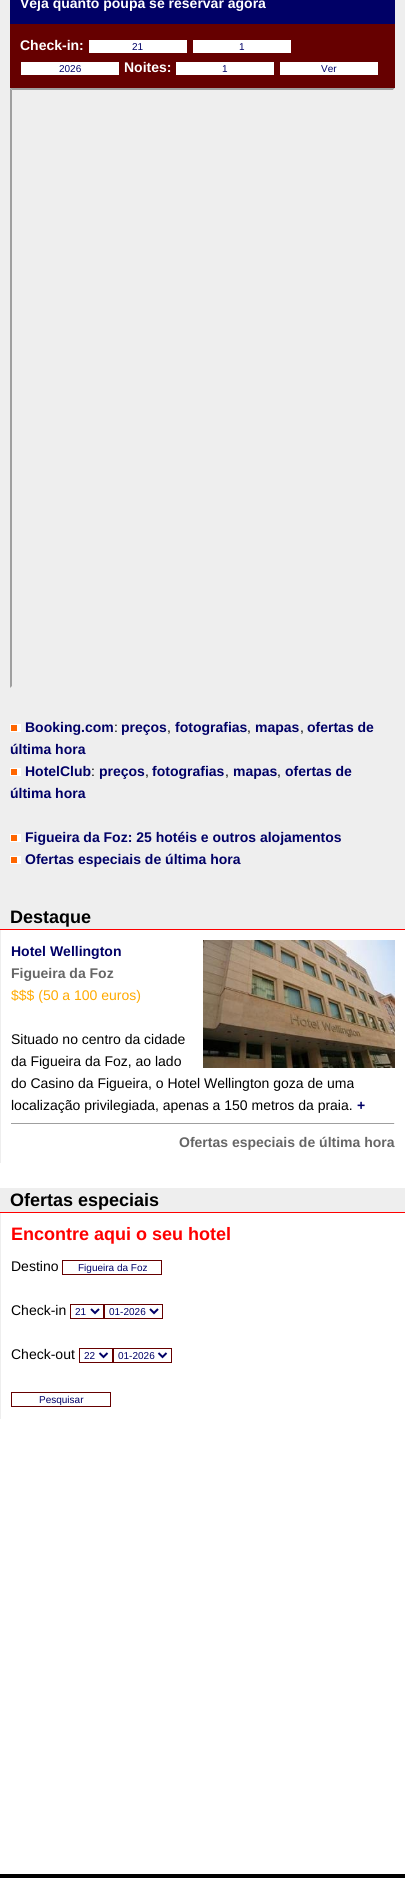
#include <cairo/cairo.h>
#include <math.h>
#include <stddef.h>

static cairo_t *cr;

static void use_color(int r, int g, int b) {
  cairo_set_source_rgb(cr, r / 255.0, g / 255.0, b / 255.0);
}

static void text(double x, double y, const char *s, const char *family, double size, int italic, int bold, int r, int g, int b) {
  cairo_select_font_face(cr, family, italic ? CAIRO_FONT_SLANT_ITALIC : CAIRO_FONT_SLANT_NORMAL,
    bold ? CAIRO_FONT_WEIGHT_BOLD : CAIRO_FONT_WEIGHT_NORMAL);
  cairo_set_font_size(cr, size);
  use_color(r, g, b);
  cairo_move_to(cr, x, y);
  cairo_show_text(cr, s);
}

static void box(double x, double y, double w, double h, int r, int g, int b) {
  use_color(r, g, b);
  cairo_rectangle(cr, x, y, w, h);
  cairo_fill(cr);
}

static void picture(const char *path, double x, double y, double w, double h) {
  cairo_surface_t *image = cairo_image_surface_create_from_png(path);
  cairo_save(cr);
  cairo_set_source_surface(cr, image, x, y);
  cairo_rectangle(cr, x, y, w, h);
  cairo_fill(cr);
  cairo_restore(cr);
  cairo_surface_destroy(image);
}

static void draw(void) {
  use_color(255, 255, 255);
  cairo_paint(cr);
  box(0, 0, 405, 929, 238, 238, 238);
  box(10, 0, 385, 24, 0, 0, 102);
  box(10, 24, 385, 64, 102, 0, 0);
  box(89, 40, 98, 13, 255, 255, 255);
  box(193, 40, 98, 13, 255, 255, 255);
  box(21, 62, 98, 13, 255, 255, 255);
  box(176, 62, 98, 13, 255, 255, 255);
  box(280, 62, 98, 13, 255, 255, 255);
  use_color(159, 159, 159);
  cairo_new_path(cr);
  cairo_move_to(cr, 10, 88);
  cairo_line_to(cr, 395, 88);
  cairo_line_to(cr, 393, 90);
  cairo_line_to(cr, 12, 90);
  cairo_close_path(cr);
  cairo_fill(cr);
  cairo_new_path(cr);
  cairo_move_to(cr, 10, 688);
  cairo_line_to(cr, 10, 88);
  cairo_line_to(cr, 12, 90);
  cairo_line_to(cr, 12, 686);
  cairo_close_path(cr);
  cairo_fill(cr);
  use_color(238, 238, 238);
  cairo_new_path(cr);
  cairo_move_to(cr, 395, 88);
  cairo_line_to(cr, 395, 688);
  cairo_line_to(cr, 393, 686);
  cairo_line_to(cr, 393, 90);
  cairo_close_path(cr);
  cairo_fill(cr);
  picture("img_01.png", 10, 724, 11, 8);
  picture("img_01.png", 10, 768, 11, 8);
  picture("img_01.png", 10, 834, 11, 8);
  picture("img_01.png", 10, 856, 11, 8);
  box(0, 929, 405, 1, 255, 0, 0);
  box(0, 930, 1, 233, 238, 238, 238);
  picture("img_02.png", 203, 940, 192, 128);
  box(11, 1123, 384, 1, 159, 159, 159);
  box(394, 1123, 1, 1, 238, 238, 238);
  box(0, 1188, 405, 24, 238, 238, 238);
  box(0, 1212, 405, 1, 255, 0, 0);
  box(0, 1213, 1, 206, 238, 238, 238);
  cairo_rectangle(cr, 62.5, 1260.5, 99, 14);
  use_color(102, 0, 0);
  cairo_set_line_width(cr, 1);
  cairo_stroke(cr);
  cairo_rectangle(cr, 70.5, 1304.5, 33, 14);
  cairo_stroke(cr);
  cairo_new_path(cr);
  cairo_move_to(cr, 91, 1309);
  cairo_line_to(cr, 95, 1313);
  cairo_line_to(cr, 99, 1309);
  use_color(0, 0, 102);
  cairo_set_line_width(cr, 2);
  cairo_stroke(cr);
  cairo_rectangle(cr, 104.5, 1304.5, 58, 14);
  use_color(102, 0, 0);
  cairo_set_line_width(cr, 1);
  cairo_stroke(cr);
  cairo_new_path(cr);
  cairo_move_to(cr, 150, 1309);
  cairo_line_to(cr, 154, 1313);
  cairo_line_to(cr, 158, 1309);
  use_color(0, 0, 102);
  cairo_set_line_width(cr, 2);
  cairo_stroke(cr);
  cairo_rectangle(cr, 79.5, 1348.5, 33, 14);
  use_color(102, 0, 0);
  cairo_set_line_width(cr, 1);
  cairo_stroke(cr);
  cairo_new_path(cr);
  cairo_move_to(cr, 99.5, 1353);
  cairo_line_to(cr, 103.5, 1357);
  cairo_line_to(cr, 107.5, 1353);
  use_color(0, 0, 102);
  cairo_set_line_width(cr, 2);
  cairo_stroke(cr);
  cairo_rectangle(cr, 113.5, 1348.5, 58, 14);
  use_color(102, 0, 0);
  cairo_set_line_width(cr, 1);
  cairo_stroke(cr);
  cairo_new_path(cr);
  cairo_move_to(cr, 158.5, 1353);
  cairo_line_to(cr, 162.5, 1357);
  cairo_line_to(cr, 166.5, 1353);
  use_color(0, 0, 102);
  cairo_set_line_width(cr, 2);
  cairo_stroke(cr);
  cairo_rectangle(cr, 11.5, 1392.5, 99, 14);
  use_color(102, 0, 0);
  cairo_set_line_width(cr, 1);
  cairo_stroke(cr);
  box(0, 1874, 405, 4, 0, 0, 0);
  text(20, 8, "Veja quanto poupa se reservar agora", "Liberation Sans", 14, 0, 1, 255, 255, 255);
  text(20, 50, "Check-in:", "Liberation Sans", 14, 0, 1, 255, 255, 255);
  text(132, 50, "21", "Liberation Sans", 10, 0, 0, 0, 0, 102);
  text(239, 50, "1", "Liberation Sans", 10, 0, 0, 0, 0, 102);
  text(59, 72, "2026", "Liberation Sans", 10, 0, 0, 0, 0, 102);
  text(124, 72, "Noites:", "Liberation Sans", 14, 0, 1, 255, 255, 255);
  text(222, 72, "1", "Liberation Sans", 10, 0, 0, 0, 0, 102);
  text(321, 72, "Ver", "Liberation Sans", 10, 0, 0, 0, 0, 102);
  text(25, 732, "Booking.com", "Liberation Sans", 14, 0, 1, 0, 0, 102);
  text(114, 732, ":", "Liberation Sans", 14, 0, 0, 0, 0, 0);
  text(121, 732, "preços", "Liberation Sans", 14, 0, 1, 0, 0, 102);
  text(167, 732, ",", "Liberation Sans", 14, 0, 0, 0, 0, 0);
  text(175, 732, "fotografias", "Liberation Sans", 14, 0, 1, 0, 0, 102);
  text(247, 732, ",", "Liberation Sans", 14, 0, 0, 0, 0, 0);
  text(255, 732, "mapas", "Liberation Sans", 14, 0, 1, 0, 0, 102);
  text(300, 732, ",", "Liberation Sans", 14, 0, 0, 0, 0, 0);
  text(307, 732, "ofertas de", "Liberation Sans", 14, 0, 1, 0, 0, 102);
  text(10, 754, "última hora", "Liberation Sans", 14, 0, 1, 0, 0, 102);
  text(25, 776, "HotelClub", "Liberation Sans", 14, 0, 1, 0, 0, 102);
  text(91, 776, ":", "Liberation Sans", 14, 0, 0, 0, 0, 0);
  text(99, 776, "preços", "Liberation Sans", 14, 0, 1, 0, 0, 102);
  text(145, 776, ",", "Liberation Sans", 14, 0, 0, 0, 0, 0);
  text(152, 776, "fotografias", "Liberation Sans", 14, 0, 1, 0, 0, 102);
  text(225, 776, ",", "Liberation Sans", 14, 0, 0, 0, 0, 0);
  text(233, 776, "mapas", "Liberation Sans", 14, 0, 1, 0, 0, 102);
  text(277, 776, ",", "Liberation Sans", 14, 0, 0, 0, 0, 0);
  text(285, 776, "ofertas de", "Liberation Sans", 14, 0, 1, 0, 0, 102);
  text(10, 798, "última hora", "Liberation Sans", 14, 0, 1, 0, 0, 102);
  text(25, 842, "Figueira da Foz: 25 hotéis e outros alojamentos", "Liberation Sans", 14, 0, 1, 0, 0, 102);
  text(25, 864, "Ofertas especiais de última hora", "Liberation Sans", 14, 0, 1, 0, 0, 102);
  text(10, 923, "Destaque", "Liberation Sans", 18, 0, 1, 0, 0, 0);
  text(11, 956, "Hotel Wellington", "Liberation Sans", 14, 0, 1, 0, 0, 102);
  text(11, 978, "Figueira da Foz", "Liberation Sans", 14, 0, 1, 102, 102, 102);
  text(11, 1000, "$$$ (50 a 100 euros)", "Liberation Sans", 14, 0, 0, 255, 170, 0);
  text(11, 1044, "Situado no centro da cidade", "Liberation Sans", 14, 0, 0, 0, 0, 0);
  text(11, 1066, "da Figueira da Foz, ao lado", "Liberation Sans", 14, 0, 0, 0, 0, 0);
  text(11, 1088, "do Casino da Figueira, o Hotel Wellington goza de uma", "Liberation Sans", 14, 0, 0, 0, 0, 0);
  text(11, 1110, "localização privilegiada, apenas a 150 metros da praia.", "Liberation Sans", 14, 0, 0, 0, 0, 0);
  text(357, 1110, "+", "Liberation Sans", 14, 0, 1, 0, 0, 102);
  text(179, 1147, "Ofertas especiais de última hora", "Liberation Sans", 14, 0, 1, 102, 102, 102);
  text(10, 1206, "Ofertas especiais", "Liberation Sans", 18, 0, 1, 0, 0, 0);
  text(11, 1240, "Encontre aqui o seu hotel", "Liberation Sans", 18, 0, 1, 255, 0, 0);
  text(11, 1271, "Destino", "Liberation Sans", 14, 0, 0, 0, 0, 0);
  text(78, 1271, "Figueira da Foz", "Liberation Sans", 10, 0, 0, 0, 0, 102);
  text(11, 1315, "Check-in", "Liberation Sans", 14, 0, 0, 0, 0, 0);
  text(75, 1315, "21", "Liberation Sans", 10, 0, 0, 0, 0, 102);
  text(109, 1315, "01-2026", "Liberation Sans", 10, 0, 0, 0, 0, 102);
  text(11, 1359, "Check-out", "Liberation Sans", 14, 0, 0, 0, 0, 0);
  text(84, 1359, "22", "Liberation Sans", 10, 0, 0, 0, 0, 102);
  text(118, 1359, "01-2026", "Liberation Sans", 10, 0, 0, 0, 0, 102);
  text(39, 1403, "Pesquisar", "Liberation Sans", 10, 0, 0, 0, 0, 102);
}

int main(void) {
  cairo_surface_t *surface = cairo_image_surface_create(CAIRO_FORMAT_RGB24, 405, 1878);
  cr = cairo_create(surface);
  cairo_font_options_t *options = cairo_font_options_create();
  cairo_font_options_set_hint_metrics(options, CAIRO_HINT_METRICS_OFF);
  cairo_font_options_set_hint_style(options, CAIRO_HINT_STYLE_NONE);
  cairo_set_font_options(cr, options);
  cairo_set_miter_limit(cr, 4);
  draw();
  cairo_surface_write_to_png(surface, "out.png");
  cairo_font_options_destroy(options);
  cairo_destroy(cr);
  cairo_surface_destroy(surface);
  return 0;
}
